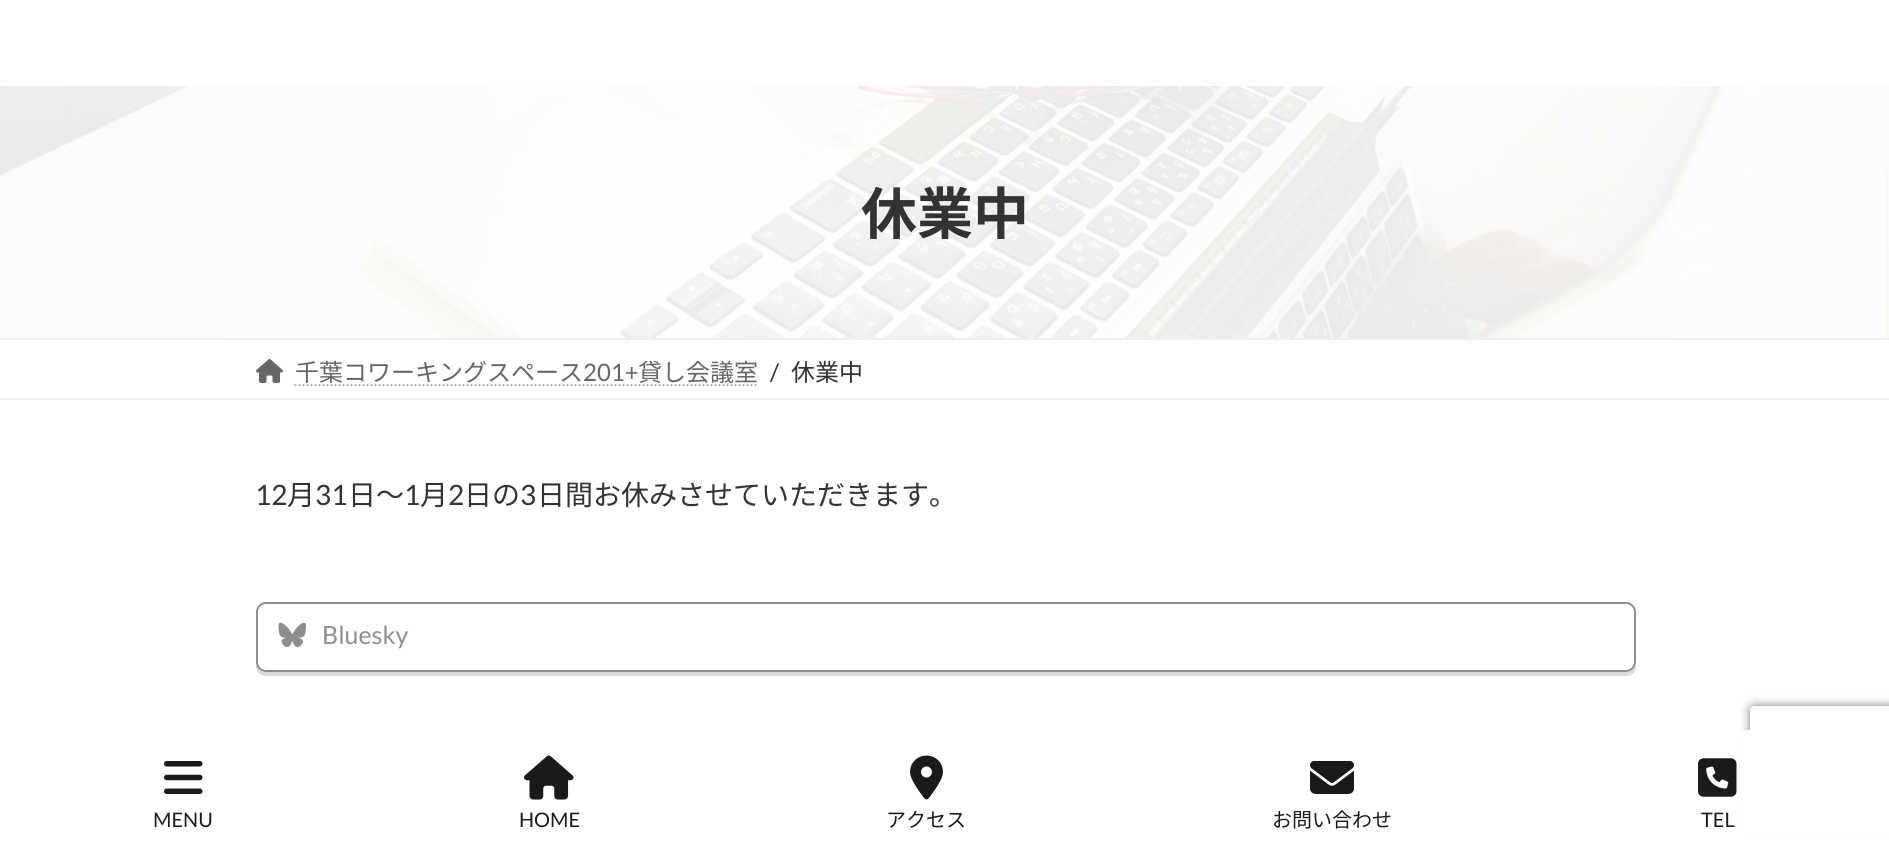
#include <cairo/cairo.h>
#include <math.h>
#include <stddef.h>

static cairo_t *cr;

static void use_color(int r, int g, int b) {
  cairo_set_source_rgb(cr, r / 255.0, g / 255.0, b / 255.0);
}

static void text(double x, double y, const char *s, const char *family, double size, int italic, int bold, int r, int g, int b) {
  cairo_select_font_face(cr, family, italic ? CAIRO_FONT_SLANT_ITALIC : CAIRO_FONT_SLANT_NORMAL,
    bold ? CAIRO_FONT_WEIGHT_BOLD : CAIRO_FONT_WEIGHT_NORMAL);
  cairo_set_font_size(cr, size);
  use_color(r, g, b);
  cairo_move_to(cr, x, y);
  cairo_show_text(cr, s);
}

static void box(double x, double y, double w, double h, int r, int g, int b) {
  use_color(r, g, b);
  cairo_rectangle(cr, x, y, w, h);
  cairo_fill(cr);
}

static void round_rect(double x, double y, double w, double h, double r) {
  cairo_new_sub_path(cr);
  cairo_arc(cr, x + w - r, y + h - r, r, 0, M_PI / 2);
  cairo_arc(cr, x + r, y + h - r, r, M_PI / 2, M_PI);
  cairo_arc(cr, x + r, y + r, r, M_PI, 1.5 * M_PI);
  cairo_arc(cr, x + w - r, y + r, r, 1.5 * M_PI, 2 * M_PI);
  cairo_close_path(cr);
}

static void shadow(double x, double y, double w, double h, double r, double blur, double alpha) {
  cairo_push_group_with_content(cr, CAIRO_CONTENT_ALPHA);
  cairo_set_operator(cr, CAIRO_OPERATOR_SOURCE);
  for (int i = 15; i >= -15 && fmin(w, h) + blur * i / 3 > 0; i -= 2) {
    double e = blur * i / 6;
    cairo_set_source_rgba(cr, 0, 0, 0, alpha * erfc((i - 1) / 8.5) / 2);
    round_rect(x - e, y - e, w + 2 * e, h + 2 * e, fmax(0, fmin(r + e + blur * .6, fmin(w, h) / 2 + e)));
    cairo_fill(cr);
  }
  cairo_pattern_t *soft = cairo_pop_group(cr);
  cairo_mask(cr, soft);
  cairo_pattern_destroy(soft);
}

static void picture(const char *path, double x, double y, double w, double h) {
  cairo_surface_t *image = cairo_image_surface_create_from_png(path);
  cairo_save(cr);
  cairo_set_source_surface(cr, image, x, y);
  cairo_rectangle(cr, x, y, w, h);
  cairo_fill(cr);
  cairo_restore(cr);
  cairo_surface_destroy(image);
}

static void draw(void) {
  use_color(255, 255, 255);
  cairo_paint(cr);
  picture("img_01.png", 0, 86, 1889, 252);
  box(0, 338, 1889, 2, 240, 240, 240);
  box(0, 398, 1889, 2, 240, 240, 240);
  picture("img_02.png", 256, 359, 27, 24);
  cairo_new_path(cr);
  cairo_move_to(cr, 294.5, 385);
  cairo_line_to(cr, 758.5, 385);
  use_color(179, 179, 179);
  cairo_set_dash(cr, (double[]){2, 2}, 2, 0);
  cairo_stroke(cr);
  use_color(217, 217, 217);
  cairo_new_path(cr);
  cairo_move_to(cr, 256, 662);
  cairo_line_to(cr, 256, 666);
  cairo_curve_to(cr, 256, 672, 260, 676, 266, 676);
  cairo_line_to(cr, 1626, 676);
  cairo_curve_to(cr, 1632, 676, 1636, 672, 1636, 666);
  cairo_line_to(cr, 1636, 662);
  cairo_curve_to(cr, 1636, 668, 1632, 672, 1626, 672);
  cairo_line_to(cr, 266, 672);
  cairo_curve_to(cr, 260, 672, 256, 668, 256, 662);
  cairo_close_path(cr);
  cairo_fill(cr);
  round_rect(257, 603, 1378, 68, 9);
  use_color(142, 142, 142);
  cairo_set_dash(cr, NULL, 0, 0);
  cairo_stroke(cr);
  picture("img_03.png", 278, 622, 28, 26);
  cairo_save(cr);
  cairo_set_fill_rule(cr, CAIRO_FILL_RULE_EVEN_ODD);
  cairo_new_path(cr);
  cairo_move_to(cr, 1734, 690);
  cairo_line_to(cr, 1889, 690);
  cairo_line_to(cr, 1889, 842);
  cairo_line_to(cr, 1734, 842);
  cairo_close_path(cr);
  cairo_move_to(cr, 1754, 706);
  cairo_line_to(cr, 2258, 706);
  cairo_curve_to(cr, 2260, 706, 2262, 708, 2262, 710);
  cairo_line_to(cr, 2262, 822);
  cairo_curve_to(cr, 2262, 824, 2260, 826, 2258, 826);
  cairo_line_to(cr, 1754, 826);
  cairo_curve_to(cr, 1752, 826, 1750, 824, 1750, 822);
  cairo_line_to(cr, 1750, 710);
  cairo_curve_to(cr, 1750, 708, 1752, 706, 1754, 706);
  cairo_close_path(cr);
  cairo_clip(cr);
  use_color(128, 128, 128);
  shadow(1750, 706, 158, 120, 4, 5, 1);
  cairo_restore(cr);
  box(1740, 730, 149, 106, 255, 255, 255);
  picture("img_04.png", 164, 761, 39, 33);
  picture("img_05.png", 524, 755, 50, 45);
  picture("img_06.png", 910, 755, 33, 45);
  picture("img_07.png", 1310, 761, 44, 33);
  picture("img_08.png", 1698, 758, 39, 39);
  text(861, 234, "休業中", "Noto Sans JP", 56, 0, 1, 51, 51, 51);
  text(295, 381, "千葉コワーキングスペース", "Noto Sans JP", 24, 0, 0, 102, 102, 102);
  text(583, 381, "201+", "Lato", 24, 0, 0, 102, 102, 102);
  text(638, 381, "貸し会議室", "Noto Sans JP", 24, 0, 0, 102, 102, 102);
  text(770, 381, "/", "Lato", 24, 0, 0, 51, 51, 51);
  text(791, 381, "休業中", "Noto Sans JP", 24, 0, 0, 51, 51, 51);
  text(255, 505, "12", "Lato", 28, 0, 0, 51, 51, 51);
  text(287, 505, "月", "Noto Sans JP", 28, 0, 0, 51, 51, 51);
  text(315, 505, "31", "Lato", 28, 0, 0, 51, 51, 51);
  text(348, 505, "日～", "Noto Sans JP", 28, 0, 0, 51, 51, 51);
  text(404, 505, "1", "Lato", 28, 0, 0, 51, 51, 51);
  text(420, 505, "月", "Noto Sans JP", 28, 0, 0, 51, 51, 51);
  text(448, 505, "2", "Lato", 28, 0, 0, 51, 51, 51);
  text(464, 505, "日の", "Noto Sans JP", 28, 0, 0, 51, 51, 51);
  text(520, 505, "3", "Lato", 28, 0, 0, 51, 51, 51);
  text(537, 505, "日間お休みさせていただきます。", "Noto Sans JP", 28, 0, 0, 51, 51, 51);
  text(322, 644, "Bluesky", "Lato", 25, 0, 0, 142, 142, 142);
  text(153, 827, "MENU", "Lato", 20, 0, 0, 27, 26, 26);
  text(519, 827, "HOME", "Lato", 20, 0, 0, 27, 26, 26);
  text(886, 827, "アクセス", "Noto Sans JP", 20, 0, 0, 27, 26, 26);
  text(1272, 827, "お問い合わせ", "Noto Sans JP", 20, 0, 0, 27, 26, 26);
  text(1701, 827, "TEL", "Lato", 20, 0, 0, 27, 26, 26);
}

int main(void) {
  cairo_surface_t *surface = cairo_image_surface_create(CAIRO_FORMAT_RGB24, 1889, 853);
  cr = cairo_create(surface);
  cairo_font_options_t *options = cairo_font_options_create();
  cairo_font_options_set_hint_metrics(options, CAIRO_HINT_METRICS_OFF);
  cairo_font_options_set_hint_style(options, CAIRO_HINT_STYLE_NONE);
  cairo_set_font_options(cr, options);
  cairo_set_miter_limit(cr, 4);
  draw();
  cairo_surface_write_to_png(surface, "out.png");
  cairo_font_options_destroy(options);
  cairo_destroy(cr);
  cairo_surface_destroy(surface);
  return 0;
}
